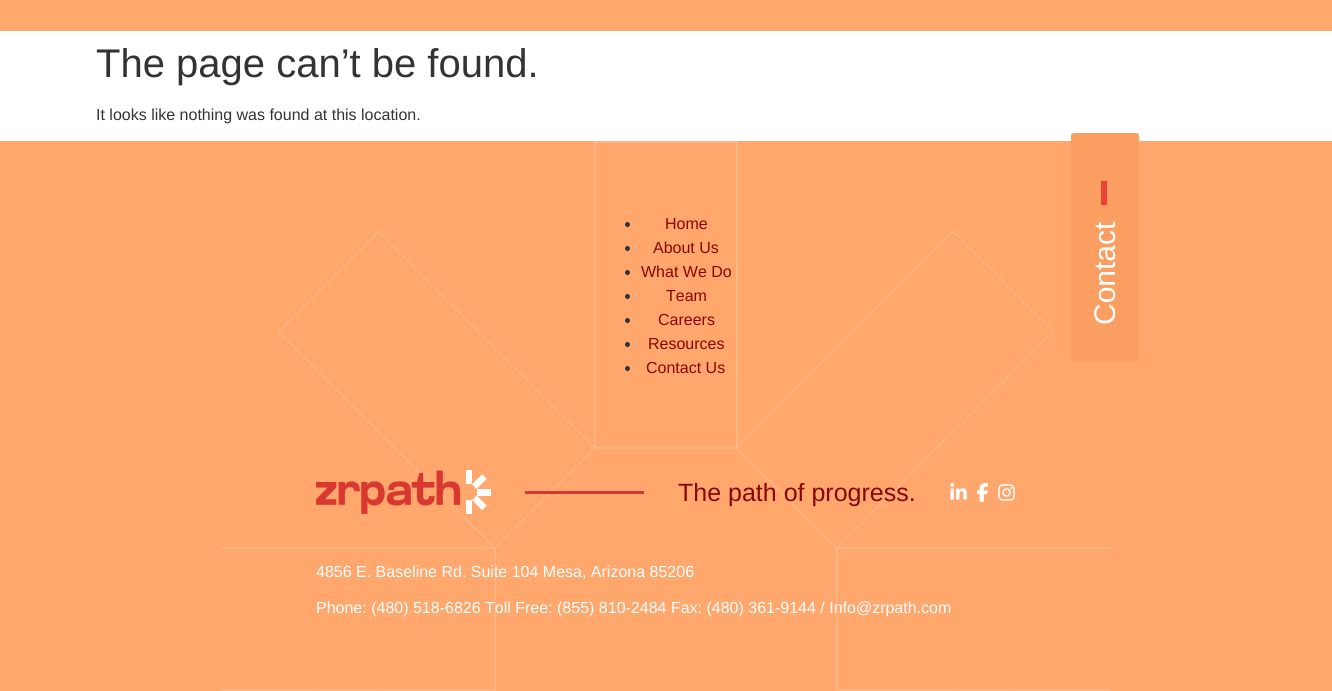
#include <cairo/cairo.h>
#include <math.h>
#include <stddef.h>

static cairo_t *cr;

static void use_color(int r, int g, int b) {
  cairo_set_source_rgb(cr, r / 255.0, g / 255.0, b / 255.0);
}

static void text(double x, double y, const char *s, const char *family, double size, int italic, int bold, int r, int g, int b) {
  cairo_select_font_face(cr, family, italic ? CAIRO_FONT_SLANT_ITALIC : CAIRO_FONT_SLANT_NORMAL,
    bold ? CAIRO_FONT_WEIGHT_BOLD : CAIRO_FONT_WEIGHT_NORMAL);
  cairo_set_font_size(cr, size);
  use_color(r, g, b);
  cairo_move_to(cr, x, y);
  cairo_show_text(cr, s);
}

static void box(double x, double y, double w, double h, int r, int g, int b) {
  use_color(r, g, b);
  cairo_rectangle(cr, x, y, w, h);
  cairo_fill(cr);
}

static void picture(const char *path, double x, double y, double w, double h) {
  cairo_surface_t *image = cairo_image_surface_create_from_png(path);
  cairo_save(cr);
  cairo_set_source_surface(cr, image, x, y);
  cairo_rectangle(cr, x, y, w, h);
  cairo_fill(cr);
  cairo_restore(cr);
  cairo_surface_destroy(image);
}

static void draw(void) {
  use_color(255, 255, 255);
  cairo_paint(cr);
  box(0, 0, 1332, 31, 255, 167, 109);
  box(0, 141, 1332, 550, 255, 167, 109);
  picture("img_01.png", 221, 141, 890, 550);
  use_color(51, 51, 51);
  cairo_arc(cr, 627.5, 224.5, 2.5, 0, 2 * M_PI);
  cairo_fill(cr);
  cairo_arc(cr, 627.5, 248.5, 2.5, 0, 2 * M_PI);
  cairo_fill(cr);
  cairo_arc(cr, 627.5, 272.5, 2.5, 0, 2 * M_PI);
  cairo_fill(cr);
  cairo_arc(cr, 627.5, 296.5, 2.5, 0, 2 * M_PI);
  cairo_fill(cr);
  cairo_arc(cr, 627.5, 320.5, 2.5, 0, 2 * M_PI);
  cairo_fill(cr);
  cairo_arc(cr, 627.5, 344.5, 2.5, 0, 2 * M_PI);
  cairo_fill(cr);
  cairo_arc(cr, 627.5, 368.5, 2.5, 0, 2 * M_PI);
  cairo_fill(cr);
  picture("img_02.png", 316, 470, 175, 44);
  box(525, 491, 119, 3, 217, 56, 48);
  picture("img_03.png", 950, 483, 17, 17);
  picture("img_04.png", 977, 483, 11, 19);
  picture("img_05.png", 998, 484, 17, 17);
  use_color(251, 158, 97);
  cairo_new_path(cr);
  cairo_move_to(cr, 1071, 358);
  cairo_line_to(cr, 1071, 136);
  cairo_curve_to(cr, 1071, 134, 1073, 133, 1074, 133);
  cairo_line_to(cr, 1136, 133);
  cairo_curve_to(cr, 1138, 133, 1139, 134, 1139, 136);
  cairo_line_to(cr, 1139, 358);
  cairo_curve_to(cr, 1139, 360, 1138, 361, 1136, 361);
  cairo_line_to(cr, 1074, 361);
  cairo_curve_to(cr, 1073, 361, 1071, 360, 1071, 358);
  cairo_close_path(cr);
  cairo_fill(cr);
  box(1101, 181, 6, 24, 239, 65, 54);
  text(96, 77, "The page can’t be found.", "Liberation Sans", 40, 0, 0, 51, 51, 51);
  text(96, 120, "It looks like nothing was found at this location.", "Liberation Sans", 16, 0, 0, 51, 51, 51);
  text(665, 229, "Home", "Liberation Sans", 16, 0, 0, 135, 6, 0);
  text(653, 253, "About Us", "Liberation Sans", 16, 0, 0, 135, 6, 0);
  text(641, 277, "What We Do", "Liberation Sans", 16, 0, 0, 135, 6, 0);
  text(666, 301, "Team", "Liberation Sans", 16, 0, 0, 135, 6, 0);
  text(658, 325, "Careers", "Liberation Sans", 16, 0, 0, 135, 6, 0);
  text(648, 349, "Resources", "Liberation Sans", 16, 0, 0, 135, 6, 0);
  text(646, 373, "Contact Us", "Liberation Sans", 16, 0, 0, 135, 6, 0);
  text(678, 501, "The path of progress.", "Liberation Sans", 25, 0, 0, 135, 6, 0);
  text(316, 577, "4856 E. Baseline Rd. Suite 104 Mesa, Arizona 85206", "Liberation Sans", 16, 0, 0, 255, 255, 255);
  text(316, 613, "Phone: (480) 518-6826 Toll Free: (855) 810-2484 Fax: (480) 361-9144 / Info@zrpath.com", "Liberation Sans", 16, 0, 0, 255, 255, 255);
  cairo_save(cr);
  cairo_translate(cr, 1115, 325);
  cairo_rotate(cr, -90 * M_PI / 180);
  text(0, 0, "Contact", "Liberation Sans", 30, 0, 0, 255, 255, 255);
  cairo_restore(cr);
}

int main(void) {
  cairo_surface_t *surface = cairo_image_surface_create(CAIRO_FORMAT_RGB24, 1332, 691);
  cr = cairo_create(surface);
  cairo_font_options_t *options = cairo_font_options_create();
  cairo_font_options_set_hint_metrics(options, CAIRO_HINT_METRICS_OFF);
  cairo_font_options_set_hint_style(options, CAIRO_HINT_STYLE_NONE);
  cairo_set_font_options(cr, options);
  cairo_set_miter_limit(cr, 4);
  draw();
  cairo_surface_write_to_png(surface, "out.png");
  cairo_font_options_destroy(options);
  cairo_destroy(cr);
  cairo_surface_destroy(surface);
  return 0;
}
